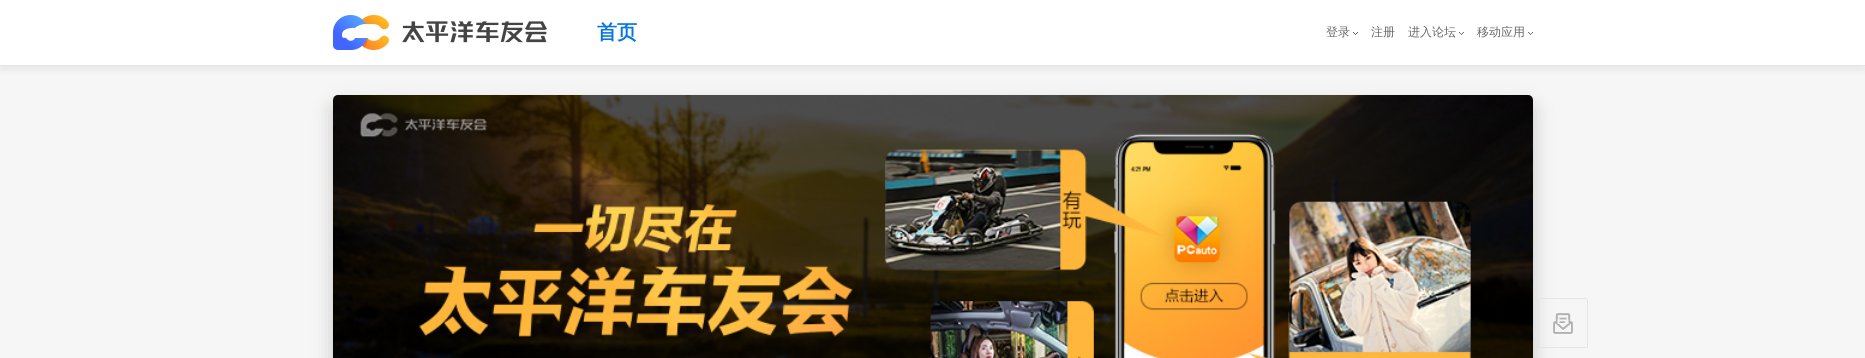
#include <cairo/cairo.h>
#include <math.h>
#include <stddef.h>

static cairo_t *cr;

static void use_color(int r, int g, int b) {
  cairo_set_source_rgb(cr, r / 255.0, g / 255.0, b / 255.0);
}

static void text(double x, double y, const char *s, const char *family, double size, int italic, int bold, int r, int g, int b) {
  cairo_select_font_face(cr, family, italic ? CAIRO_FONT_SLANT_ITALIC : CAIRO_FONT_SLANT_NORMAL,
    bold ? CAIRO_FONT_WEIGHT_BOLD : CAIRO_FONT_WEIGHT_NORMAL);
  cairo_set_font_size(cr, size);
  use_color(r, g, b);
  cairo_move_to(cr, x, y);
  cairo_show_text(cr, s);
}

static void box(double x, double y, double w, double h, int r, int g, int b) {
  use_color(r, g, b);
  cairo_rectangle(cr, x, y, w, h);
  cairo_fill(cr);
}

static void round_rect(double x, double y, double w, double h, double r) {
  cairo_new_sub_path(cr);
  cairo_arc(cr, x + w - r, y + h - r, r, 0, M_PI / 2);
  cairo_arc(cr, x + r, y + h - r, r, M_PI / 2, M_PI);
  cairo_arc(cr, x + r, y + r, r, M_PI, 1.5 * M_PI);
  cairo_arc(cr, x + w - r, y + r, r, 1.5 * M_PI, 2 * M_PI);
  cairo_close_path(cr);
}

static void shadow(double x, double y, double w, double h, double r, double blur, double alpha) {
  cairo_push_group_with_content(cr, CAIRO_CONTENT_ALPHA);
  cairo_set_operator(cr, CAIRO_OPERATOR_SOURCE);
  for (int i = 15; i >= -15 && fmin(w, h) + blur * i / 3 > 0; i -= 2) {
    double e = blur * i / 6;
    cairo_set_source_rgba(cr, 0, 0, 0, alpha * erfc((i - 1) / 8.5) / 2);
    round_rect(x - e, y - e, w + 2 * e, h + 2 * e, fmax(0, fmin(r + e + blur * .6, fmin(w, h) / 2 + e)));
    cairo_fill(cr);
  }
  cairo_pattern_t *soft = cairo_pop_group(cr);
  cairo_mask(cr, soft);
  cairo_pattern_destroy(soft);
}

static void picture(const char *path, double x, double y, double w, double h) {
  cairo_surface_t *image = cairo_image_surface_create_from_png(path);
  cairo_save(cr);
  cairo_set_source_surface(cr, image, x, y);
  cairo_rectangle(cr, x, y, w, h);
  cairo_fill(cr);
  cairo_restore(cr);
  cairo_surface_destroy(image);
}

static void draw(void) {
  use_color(246, 246, 246);
  cairo_paint(cr);
  use_color(0, 0, 0);
  shadow(0, 5, 1865, 66, 0, 2.5, 0.05);
  box(0, 0, 1865, 65, 255, 255, 255);
  box(0, 65, 1865, 1, 229, 229, 229);
  picture("img_01.png", 333, 15, 214, 35);
  picture("img_02.png", 1353, 32, 5, 3);
  picture("img_02.png", 1459, 32, 5, 3);
  picture("img_02.png", 1528, 32, 5, 3);
  use_color(0, 0, 0);
  shadow(333, 105, 1200, 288, 5, 10, 0.2);
  picture("img_03.png", 333, 95, 1200, 263);
  cairo_new_path(cr);
  cairo_move_to(cr, 1541, 298.5);
  cairo_line_to(cr, 1585, 298.5);
  cairo_curve_to(cr, 1586.5, 298.5, 1587.5, 299.5, 1587.5, 301);
  cairo_line_to(cr, 1587.5, 347.5);
  cairo_line_to(cr, 1538.5, 347.5);
  cairo_line_to(cr, 1538.5, 301);
  cairo_curve_to(cr, 1538.5, 299.5, 1539.5, 298.5, 1541, 298.5);
  cairo_close_path(cr);
  use_color(229, 229, 229);
  cairo_set_line_width(cr, 1);
  cairo_stroke(cr);
  picture("img_04.png", 1553, 313, 20, 21);
  text(597, 39, "首页", "WenQuanYi Zen Hei", 20, 0, 1, 7, 119, 221);
  text(1326, 36, "登录", "WenQuanYi Zen Hei Medium", 12, 0, 0, 102, 102, 102);
  text(1371, 36, "注册", "WenQuanYi Zen Hei Medium", 12, 0, 0, 102, 102, 102);
  text(1408, 36, "进入论坛", "WenQuanYi Zen Hei Medium", 12, 0, 0, 102, 102, 102);
  text(1477, 36, "移动应用", "WenQuanYi Zen Hei Medium", 12, 0, 0, 102, 102, 102);
}

int main(void) {
  cairo_surface_t *surface = cairo_image_surface_create(CAIRO_FORMAT_RGB24, 1865, 358);
  cr = cairo_create(surface);
  cairo_font_options_t *options = cairo_font_options_create();
  cairo_font_options_set_hint_metrics(options, CAIRO_HINT_METRICS_OFF);
  cairo_font_options_set_hint_style(options, CAIRO_HINT_STYLE_NONE);
  cairo_set_font_options(cr, options);
  cairo_set_miter_limit(cr, 4);
  draw();
  cairo_surface_write_to_png(surface, "out.png");
  cairo_font_options_destroy(options);
  cairo_destroy(cr);
  cairo_surface_destroy(surface);
  return 0;
}
